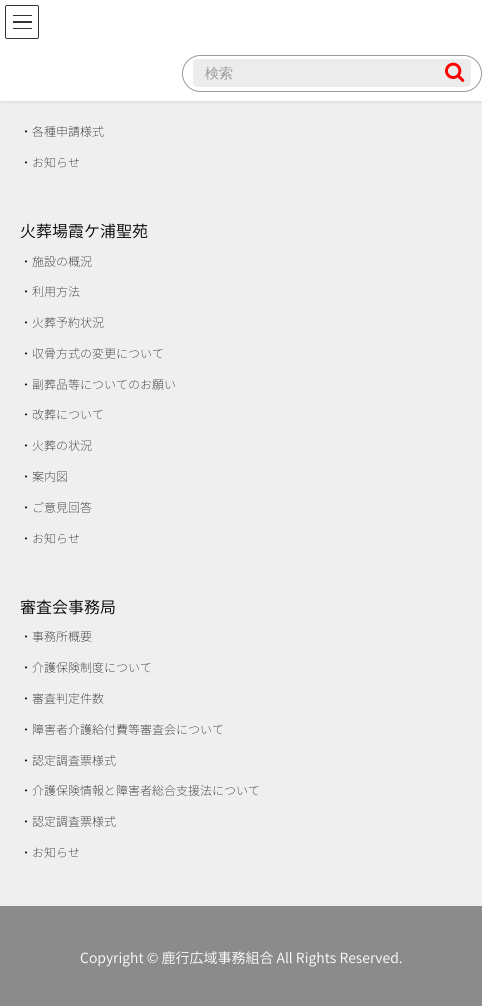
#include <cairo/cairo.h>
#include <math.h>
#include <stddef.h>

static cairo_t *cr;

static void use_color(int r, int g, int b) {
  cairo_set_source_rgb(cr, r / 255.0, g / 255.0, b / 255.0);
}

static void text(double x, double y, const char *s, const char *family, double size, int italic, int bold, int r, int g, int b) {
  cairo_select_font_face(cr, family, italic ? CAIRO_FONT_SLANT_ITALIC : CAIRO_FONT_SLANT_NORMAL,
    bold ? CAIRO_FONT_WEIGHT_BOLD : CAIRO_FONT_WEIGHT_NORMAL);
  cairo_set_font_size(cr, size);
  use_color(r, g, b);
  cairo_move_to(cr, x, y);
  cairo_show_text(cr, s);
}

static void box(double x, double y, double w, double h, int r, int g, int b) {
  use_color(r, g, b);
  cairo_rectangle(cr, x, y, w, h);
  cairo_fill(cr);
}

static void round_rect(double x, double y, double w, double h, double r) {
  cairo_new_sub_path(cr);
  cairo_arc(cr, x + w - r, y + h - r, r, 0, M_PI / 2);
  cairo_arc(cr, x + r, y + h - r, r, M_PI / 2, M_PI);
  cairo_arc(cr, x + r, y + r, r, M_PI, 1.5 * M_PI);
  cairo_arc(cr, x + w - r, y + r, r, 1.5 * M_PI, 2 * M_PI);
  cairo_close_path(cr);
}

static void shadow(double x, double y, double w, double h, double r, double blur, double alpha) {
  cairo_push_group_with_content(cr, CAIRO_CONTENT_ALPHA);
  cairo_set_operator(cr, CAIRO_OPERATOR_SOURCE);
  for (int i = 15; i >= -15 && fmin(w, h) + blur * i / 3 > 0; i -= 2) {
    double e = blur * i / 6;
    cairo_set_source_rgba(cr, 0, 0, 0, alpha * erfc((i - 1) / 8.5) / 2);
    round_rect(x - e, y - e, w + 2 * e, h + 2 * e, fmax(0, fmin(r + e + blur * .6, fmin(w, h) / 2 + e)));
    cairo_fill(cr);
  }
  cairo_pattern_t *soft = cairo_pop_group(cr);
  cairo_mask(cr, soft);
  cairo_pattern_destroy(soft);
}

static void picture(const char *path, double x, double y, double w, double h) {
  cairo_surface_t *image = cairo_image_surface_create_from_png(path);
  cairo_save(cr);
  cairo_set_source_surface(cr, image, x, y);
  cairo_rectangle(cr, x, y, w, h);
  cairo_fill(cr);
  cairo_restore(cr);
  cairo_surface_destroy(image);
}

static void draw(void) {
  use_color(239, 239, 239);
  cairo_paint(cr);
  use_color(0, 0, 0);
  shadow(0, 1, 482, 101, 0, 1.5, 0.1);
  box(0, 0, 482, 101, 255, 255, 255);
  box(13, 15, 19, 1, 51, 51, 51);
  box(13, 21, 19, 2, 51, 51, 51);
  box(13, 28, 19, 1, 51, 51, 51);
  round_rect(5.5, 5.5, 33, 33, 1.5);
  cairo_set_line_width(cr, 1);
  cairo_stroke(cr);
  round_rect(182.5, 55.5, 299, 36, 18);
  use_color(153, 153, 153);
  cairo_stroke(cr);
  use_color(236, 236, 236);
  cairo_new_path(cr);
  cairo_move_to(cr, 197, 59);
  cairo_curve_to(cr, 195, 59, 193, 61, 193, 63);
  cairo_line_to(cr, 193, 83);
  cairo_curve_to(cr, 193, 85, 195, 87, 197, 87);
  cairo_line_to(cr, 467, 87);
  cairo_curve_to(cr, 469, 87, 471, 85, 471, 83);
  cairo_line_to(cr, 471, 63);
  cairo_curve_to(cr, 471, 61, 469, 59, 467, 59);
  cairo_close_path(cr);
  cairo_fill(cr);
  picture("img_01.png", 445, 62, 20, 20);
  box(0, 906, 482, 100, 139, 139, 139);
  text(205, 78, "検索", "WenQuanYi Zen Hei Medium", 14, 0, 0, 153, 153, 153);
  text(20, 136, "・各種申請様式", "Noto Sans JP Thin", 12, 0, 0, 0, 0, 0);
  text(20, 167, "・お知らせ", "Noto Sans JP Thin", 12, 0, 0, 0, 0, 0);
  text(20, 237, "火葬場霞ケ浦聖苑", "Noto Sans JP Light", 16, 0, 0, 0, 0, 0);
  text(20, 266, "・施設の概況", "Noto Sans JP Thin", 12, 0, 0, 0, 0, 0);
  text(20, 296, "・利用方法", "Noto Sans JP Thin", 12, 0, 0, 0, 0, 0);
  text(20, 327, "・火葬予約状況", "Noto Sans JP Thin", 12, 0, 0, 0, 0, 0);
  text(20, 358, "・収骨方式の変更について", "Noto Sans JP Thin", 12, 0, 0, 0, 0, 0);
  text(20, 389, "・副葬品等についてのお願い", "Noto Sans JP Thin", 12, 0, 0, 0, 0, 0);
  text(20, 419, "・改葬について", "Noto Sans JP Thin", 12, 0, 0, 0, 0, 0);
  text(20, 450, "・火葬の状況", "Noto Sans JP Thin", 12, 0, 0, 0, 0, 0);
  text(20, 481, "・案内図", "Noto Sans JP Thin", 12, 0, 0, 0, 0, 0);
  text(20, 512, "・ご意見回答", "Noto Sans JP Thin", 12, 0, 0, 0, 0, 0);
  text(20, 543, "・お知らせ", "Noto Sans JP Thin", 12, 0, 0, 0, 0, 0);
  text(20, 613, "審査会事務局", "Noto Sans JP Light", 16, 0, 0, 0, 0, 0);
  text(20, 641, "・事務所概要", "Noto Sans JP Thin", 12, 0, 0, 0, 0, 0);
  text(20, 672, "・介護保険制度について", "Noto Sans JP Thin", 12, 0, 0, 0, 0, 0);
  text(20, 703, "・審査判定件数", "Noto Sans JP Thin", 12, 0, 0, 0, 0, 0);
  text(20, 734, "・障害者介護給付費等審査会について", "Noto Sans JP Thin", 12, 0, 0, 0, 0, 0);
  text(20, 765, "・認定調査票様式", "Noto Sans JP Thin", 12, 0, 0, 0, 0, 0);
  text(20, 795, "・介護保険情報と障害者総合支援法について", "Noto Sans JP Thin", 12, 0, 0, 0, 0, 0);
  text(20, 826, "・認定調査票様式", "Noto Sans JP Thin", 12, 0, 0, 0, 0, 0);
  text(20, 857, "・お知らせ", "Noto Sans JP Thin", 12, 0, 0, 0, 0, 0);
  text(80, 963, "Copyright © 鹿行広域事務組合 All Rights Reserved.", "Noto Sans JP Light", 14, 0, 0, 255, 255, 255);
}

int main(void) {
  cairo_surface_t *surface = cairo_image_surface_create(CAIRO_FORMAT_RGB24, 482, 1006);
  cr = cairo_create(surface);
  cairo_font_options_t *options = cairo_font_options_create();
  cairo_font_options_set_hint_metrics(options, CAIRO_HINT_METRICS_OFF);
  cairo_font_options_set_hint_style(options, CAIRO_HINT_STYLE_NONE);
  cairo_set_font_options(cr, options);
  cairo_set_miter_limit(cr, 4);
  draw();
  cairo_surface_write_to_png(surface, "out.png");
  cairo_font_options_destroy(options);
  cairo_destroy(cr);
  cairo_surface_destroy(surface);
  return 0;
}
